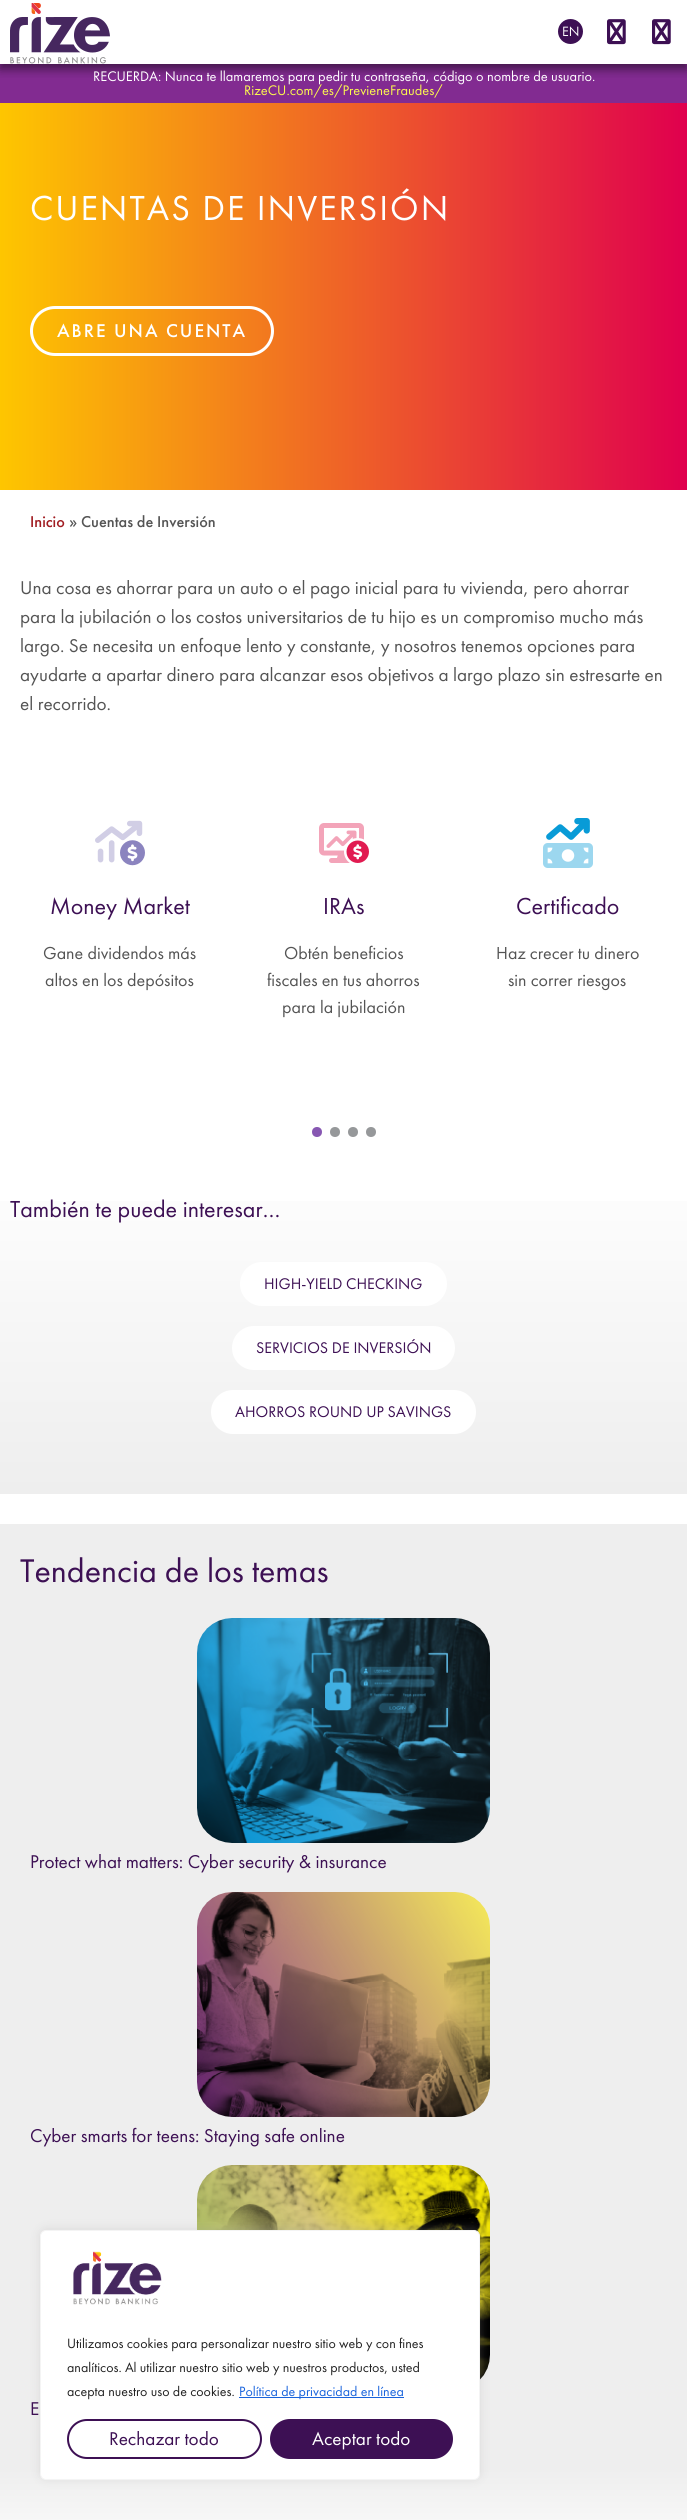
#include <cairo/cairo.h>
#include <math.h>
#include <stddef.h>

static cairo_t *cr;

static void use_color(int r, int g, int b) {
  cairo_set_source_rgb(cr, r / 255.0, g / 255.0, b / 255.0);
}

static void text(double x, double y, const char *s, const char *family, double size, int italic, int bold, int r, int g, int b) {
  cairo_select_font_face(cr, family, italic ? CAIRO_FONT_SLANT_ITALIC : CAIRO_FONT_SLANT_NORMAL,
    bold ? CAIRO_FONT_WEIGHT_BOLD : CAIRO_FONT_WEIGHT_NORMAL);
  cairo_set_font_size(cr, size);
  use_color(r, g, b);
  cairo_move_to(cr, x, y);
  cairo_show_text(cr, s);
}

static void spaced_text(double x, double y, const char *s, double letter, double word) {
  cairo_move_to(cr, x, y);
  while (*s) {
    char ch[5] = {0};
    int n = 0;
    do ch[n++] = *s++; while ((*s & 0xC0) == 0x80);
    cairo_show_text(cr, ch);
    cairo_rel_move_to(cr, letter + word * (*ch == ' '), 0);
  }
}

static void box(double x, double y, double w, double h, int r, int g, int b) {
  use_color(r, g, b);
  cairo_rectangle(cr, x, y, w, h);
  cairo_fill(cr);
}

static void round_rect(double x, double y, double w, double h, double r) {
  cairo_new_sub_path(cr);
  cairo_arc(cr, x + w - r, y + h - r, r, 0, M_PI / 2);
  cairo_arc(cr, x + r, y + h - r, r, M_PI / 2, M_PI);
  cairo_arc(cr, x + r, y + r, r, M_PI, 1.5 * M_PI);
  cairo_arc(cr, x + w - r, y + r, r, 1.5 * M_PI, 2 * M_PI);
  cairo_close_path(cr);
}

static void shadow(double x, double y, double w, double h, double r, double blur, double alpha) {
  cairo_push_group_with_content(cr, CAIRO_CONTENT_ALPHA);
  cairo_set_operator(cr, CAIRO_OPERATOR_SOURCE);
  for (int i = 15; i >= -15 && fmin(w, h) + blur * i / 3 > 0; i -= 2) {
    double e = blur * i / 6;
    cairo_set_source_rgba(cr, 0, 0, 0, alpha * erfc((i - 1) / 8.5) / 2);
    round_rect(x - e, y - e, w + 2 * e, h + 2 * e, fmax(0, fmin(r + e + blur * .6, fmin(w, h) / 2 + e)));
    cairo_fill(cr);
  }
  cairo_pattern_t *soft = cairo_pop_group(cr);
  cairo_mask(cr, soft);
  cairo_pattern_destroy(soft);
}

static void picture(const char *path, double x, double y, double w, double h) {
  cairo_surface_t *image = cairo_image_surface_create_from_png(path);
  cairo_save(cr);
  cairo_set_source_surface(cr, image, x, y);
  cairo_rectangle(cr, x, y, w, h);
  cairo_fill(cr);
  cairo_restore(cr);
  cairo_surface_destroy(image);
}

static void draw(void) {
  cairo_pattern_t *gradient;
  use_color(255, 255, 255);
  cairo_paint(cr);
  box(0, 64, 687, 39, 130, 43, 145);
  cairo_save(cr);
  cairo_rectangle(cr, 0, 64, 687, 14);
  cairo_clip(cr);
  use_color(0, 0, 0);
  shadow(0, 5, 687, 64, 0, 5, 0.5);
  cairo_restore(cr);
  picture("img_01.png", 10, 3, 100, 61);
  use_color(61, 16, 84);
  cairo_arc(cr, 570.5, 31.5, 12.5, 0, 2 * M_PI);
  cairo_fill(cr);
  picture("img_02.png", 607, 19, 19, 26);
  picture("img_02.png", 652, 19, 19, 26);
  gradient = cairo_pattern_create_linear(0, 290, 687, 290);
  cairo_pattern_add_color_stop_rgba(gradient, 0, 0.996, 0.776, 0, 1);
  cairo_pattern_add_color_stop_rgba(gradient, 1, 0.878, 0, 0.306, 1);
  cairo_set_source(cr, gradient);
  cairo_pattern_destroy(gradient);
  cairo_rectangle(cr, 0, 103, 687, 387);
  cairo_fill(cr);
  round_rect(31.5, 307.5, 241, 47, 23.5);
  use_color(255, 255, 255);
  cairo_set_line_width(cr, 3);
  cairo_stroke(cr);
  picture("img_03.png", 95, 820, 50, 46);
  picture("img_04.png", 319, 823, 50, 40);
  picture("img_05.png", 543, 818, 50, 50);
  use_color(135, 87, 178);
  cairo_arc(cr, 317, 1132, 5, 0, 2 * M_PI);
  cairo_fill(cr);
  use_color(150, 152, 154);
  cairo_arc(cr, 335, 1132, 5, 0, 2 * M_PI);
  cairo_fill(cr);
  cairo_arc(cr, 353, 1132, 5, 0, 2 * M_PI);
  cairo_fill(cr);
  cairo_arc(cr, 371, 1132, 5, 0, 2 * M_PI);
  cairo_fill(cr);
  gradient = cairo_pattern_create_linear(344, 1151, 344, 1494);
  cairo_pattern_add_color_stop_rgba(gradient, 0, 1, 1, 1, 1);
  cairo_pattern_add_color_stop_rgba(gradient, 1, 0.933, 0.933, 0.933, 1);
  cairo_set_source(cr, gradient);
  cairo_pattern_destroy(gradient);
  cairo_rectangle(cr, 0, 1201, 687, 293);
  cairo_fill(cr);
  use_color(255, 255, 255);
  round_rect(240, 1262, 207, 44, 22);
  cairo_fill(cr);
  round_rect(232, 1326, 223, 44, 22);
  cairo_fill(cr);
  round_rect(211, 1390, 265, 44, 22);
  cairo_fill(cr);
  box(0, 1524, 687, 945, 238, 238, 238);
  picture("img_06.png", 197, 1618, 293, 225);
  picture("img_07.png", 197, 1892, 293, 225);
  picture("img_08.png", 197, 2165, 293, 215);
  gradient = cairo_pattern_create_linear(344, 2469, 344, 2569);
  cairo_pattern_add_color_stop_rgba(gradient, 0, 0.933, 0.933, 0.933, 1);
  cairo_pattern_add_color_stop_rgba(gradient, 1, 1, 1, 1, 1);
  cairo_set_source(cr, gradient);
  cairo_pattern_destroy(gradient);
  cairo_rectangle(cr, 0, 2469, 687, 51);
  cairo_fill(cr);
  use_color(172, 171, 171);
  shadow(40, 2229, 440, 250, 6, 5, 0.3);
  use_color(255, 255, 255);
  round_rect(40.5, 2230.5, 439, 249, 5.5);
  cairo_fill_preserve(cr);
  use_color(244, 244, 244);
  cairo_set_line_width(cr, 1);
  cairo_stroke(cr);
  picture("img_09.png", 73, 2251, 89, 54);
  box(239, 2397, 165, 1, 24, 99, 220);
  round_rect(68, 2420, 193, 38, 19);
  use_color(61, 16, 84);
  cairo_set_line_width(cr, 2);
  cairo_stroke(cr);
  round_rect(271, 2420, 181, 38, 19);
  cairo_fill_preserve(cr);
  cairo_stroke(cr);
  text(562, 36, "EN", "Futura PT", 14, 0, 0, 255, 255, 255);
  text(93, 81, "RECUERDA: Nunca te llamaremos para pedir tu contraseña, código o nombre de usuario.", "Futura PT", 14.4, 0, 0, 255, 255, 255);
  text(244, 95, "RizeCU.com/es/PrevieneFraudes/", "Futura PT", 14.4, 0, 0, 252, 248, 78);
  cairo_set_font_size(cr, 36);
  use_color(255, 255, 255);
  spaced_text(30, 220, "CUENTAS DE INVERSIÓN", 2, 0);
  cairo_select_font_face(cr, "Futura PT Medium", CAIRO_FONT_SLANT_NORMAL, CAIRO_FONT_WEIGHT_NORMAL);
  cairo_set_font_size(cr, 19.2);
  spaced_text(57, 337, "ABRE UNA CUENTA", 2, 0);
  text(30, 527, "Inicio", "Futura PT Medium", 16.25, 0, 0, 161, 29, 34);
  text(69, 527, "» Cuentas de Inversión", "Futura PT Medium", 16.25, 0, 0, 84, 84, 84);
  text(20, 594, "Una cosa es ahorrar para un auto o el pago inicial para tu vivienda, pero ahorrar", "Futura PT", 19.2, 0, 0, 84, 84, 84);
  text(20, 623, "para la jubilación o los costos universitarios de tu hijo es un compromiso mucho más", "Futura PT", 19.2, 0, 0, 84, 84, 84);
  text(20, 652, "largo. Se necesita un enfoque lento y constante, y nosotros tenemos opciones para", "Futura PT", 19.2, 0, 0, 84, 84, 84);
  text(20, 681, "ayudarte a apartar dinero para alcanzar esos objetivos a largo plazo sin estresarte en", "Futura PT", 19.2, 0, 0, 84, 84, 84);
  text(20, 710, "el recorrido.", "Futura PT", 19.2, 0, 0, 84, 84, 84);
  text(50, 914, "Money Market", "Futura PT", 24, 0, 0, 61, 16, 84);
  text(43, 959, "Gane dividendos más", "Futura PT", 18, 0, 0, 84, 84, 84);
  text(45, 986, "altos en los depósitos", "Futura PT", 18, 0, 0, 84, 84, 84);
  text(323, 914, "IRAs", "Futura PT", 24, 0, 0, 61, 16, 84);
  text(284, 959, "Obtén beneficios", "Futura PT", 18, 0, 0, 84, 84, 84);
  text(267, 986, "fiscales en tus ahorros", "Futura PT", 18, 0, 0, 84, 84, 84);
  text(282, 1013, "para la jubilación", "Futura PT", 18, 0, 0, 84, 84, 84);
  text(516, 914, "Certificado", "Futura PT", 24, 0, 0, 61, 16, 84);
  text(496, 959, "Haz crecer tu dinero", "Futura PT", 18, 0, 0, 84, 84, 84);
  text(508, 986, "sin correr riesgos", "Futura PT", 18, 0, 0, 84, 84, 84);
  text(10, 1217, "También te puede interesar…", "Futura PT", 24, 0, 0, 61, 16, 84);
  text(264, 1289, "HIGH-YIELD CHECKING", "Futura PT", 16, 0, 0, 61, 16, 84);
  text(256, 1353, "SERVICIOS DE INVERSIÓN", "Futura PT", 16, 0, 0, 61, 16, 84);
  text(235, 1417, "AHORROS ROUND UP SAVINGS", "Futura PT", 16, 0, 0, 61, 16, 84);
  text(20, 1582, "Tendencia de los temas", "Futura PT", 34, 0, 0, 61, 16, 84);
  text(30, 1868, "Protect what matters: Cyber security & insurance", "Futura PT", 19.2, 0, 0, 61, 16, 84);
  text(30, 2142, "Cyber smarts for teens: Staying safe online", "Futura PT", 19.2, 0, 0, 61, 16, 84);
  text(30, 2415, "E", "Futura PT", 19.2, 0, 0, 61, 16, 84);
  text(67, 2348, "Utilizamos cookies para personalizar nuestro sitio web y con fines", "Futura PT", 14, 0, 0, 33, 33, 33);
  text(67, 2372, "analíticos. Al utilizar nuestro sitio web y nuestros productos, usted", "Futura PT", 14, 0, 0, 33, 33, 33);
  text(67, 2396, "acepta nuestro uso de cookies.", "Futura PT", 14, 0, 0, 33, 33, 33);
  text(239, 2396, "Política de privacidad en línea", "Futura PT", 14, 0, 0, 24, 99, 220);
  text(109, 2445, "Rechazar todo", "Futura PT", 19.2, 0, 0, 61, 16, 84);
  text(312, 2445, "Aceptar todo", "Futura PT", 19.2, 0, 0, 255, 255, 255);
}

int main(void) {
  cairo_surface_t *surface = cairo_image_surface_create(CAIRO_FORMAT_RGB24, 687, 2520);
  cr = cairo_create(surface);
  cairo_font_options_t *options = cairo_font_options_create();
  cairo_font_options_set_hint_metrics(options, CAIRO_HINT_METRICS_OFF);
  cairo_font_options_set_hint_style(options, CAIRO_HINT_STYLE_NONE);
  cairo_set_font_options(cr, options);
  cairo_set_miter_limit(cr, 4);
  draw();
  cairo_surface_write_to_png(surface, "out.png");
  cairo_font_options_destroy(options);
  cairo_destroy(cr);
  cairo_surface_destroy(surface);
  return 0;
}
